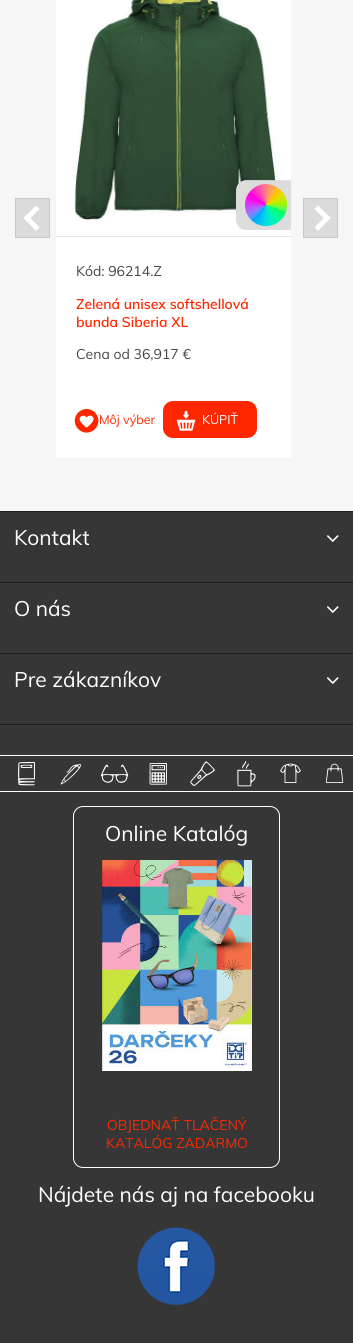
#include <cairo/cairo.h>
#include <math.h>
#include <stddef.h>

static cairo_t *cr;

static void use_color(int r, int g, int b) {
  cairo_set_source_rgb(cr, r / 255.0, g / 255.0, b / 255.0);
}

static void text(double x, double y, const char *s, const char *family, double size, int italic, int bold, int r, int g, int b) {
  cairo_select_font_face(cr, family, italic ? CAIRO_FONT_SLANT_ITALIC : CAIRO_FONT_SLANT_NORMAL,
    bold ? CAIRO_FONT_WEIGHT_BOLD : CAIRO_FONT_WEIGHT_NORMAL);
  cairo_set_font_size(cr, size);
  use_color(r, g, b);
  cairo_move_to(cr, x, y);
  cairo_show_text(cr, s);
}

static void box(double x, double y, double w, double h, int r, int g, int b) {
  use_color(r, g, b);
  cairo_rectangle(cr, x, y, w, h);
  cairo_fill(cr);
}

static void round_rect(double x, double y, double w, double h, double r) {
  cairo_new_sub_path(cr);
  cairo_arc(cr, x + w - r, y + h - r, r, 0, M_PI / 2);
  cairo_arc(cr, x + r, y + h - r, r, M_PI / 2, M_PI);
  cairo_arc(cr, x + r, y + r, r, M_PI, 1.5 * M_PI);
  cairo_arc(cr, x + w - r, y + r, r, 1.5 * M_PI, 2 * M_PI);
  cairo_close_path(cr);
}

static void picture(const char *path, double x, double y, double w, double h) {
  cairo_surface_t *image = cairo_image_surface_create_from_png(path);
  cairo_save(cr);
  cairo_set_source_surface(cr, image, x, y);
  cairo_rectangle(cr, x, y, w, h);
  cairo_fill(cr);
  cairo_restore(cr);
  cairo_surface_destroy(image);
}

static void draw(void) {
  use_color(246, 246, 246);
  cairo_paint(cr);
  box(56, 0, 235, 458, 255, 255, 255);
  box(56, 236, 239, 1, 230, 230, 230);
  box(291, 236, 4, 1, 246, 246, 246);
  use_color(220, 219, 219);
  cairo_rectangle(cr, 15.5, 198.5, 34, 39);
  cairo_fill_preserve(cr);
  use_color(199, 199, 199);
  cairo_set_line_width(cr, 1);
  cairo_stroke(cr);
  use_color(255, 255, 255);
  cairo_new_path(cr);
  cairo_move_to(cr, 39.5, 227.5);
  cairo_line_to(cr, 36, 231);
  cairo_line_to(cr, 23.5, 218);
  cairo_line_to(cr, 27, 214.5);
  cairo_close_path(cr);
  cairo_fill(cr);
  cairo_new_path(cr);
  cairo_move_to(cr, 39.5, 209);
  cairo_line_to(cr, 27, 221.5);
  cairo_line_to(cr, 23.5, 218);
  cairo_line_to(cr, 36, 205.5);
  cairo_close_path(cr);
  cairo_fill(cr);
  use_color(220, 219, 219);
  cairo_rectangle(cr, 303.5, 198.5, 34, 39);
  cairo_fill_preserve(cr);
  use_color(199, 199, 199);
  cairo_stroke(cr);
  use_color(255, 255, 255);
  cairo_new_path(cr);
  cairo_move_to(cr, 330.5, 218);
  cairo_line_to(cr, 318, 231);
  cairo_line_to(cr, 314.5, 227.5);
  cairo_line_to(cr, 327, 214.5);
  cairo_close_path(cr);
  cairo_fill(cr);
  cairo_new_path(cr);
  cairo_move_to(cr, 330.5, 218);
  cairo_line_to(cr, 327, 221.5);
  cairo_line_to(cr, 314.5, 209);
  cairo_line_to(cr, 318, 205.5);
  cairo_close_path(cr);
  cairo_fill(cr);
  picture("img_01.png", 74, 0, 204, 221);
  picture("img_02.png", 236, 180, 55, 50);
  picture("img_03.png", 74, 409, 25, 24);
  use_color(255, 39, 0);
  round_rect(163, 401, 94, 37, 10);
  cairo_fill(cr);
  picture("img_04.png", 176, 410, 20, 21);
  box(0, 512, 353, 831, 54, 54, 54);
  box(0, 511, 353, 1, 29, 29, 29);
  box(0, 582, 353, 1, 29, 29, 29);
  picture("img_05.png", 327, 535, 12, 7);
  box(0, 653, 353, 1, 29, 29, 29);
  picture("img_05.png", 327, 606, 12, 7);
  box(0, 724, 353, 1, 29, 29, 29);
  picture("img_05.png", 327, 677, 12, 7);
  box(0, 755, 353, 1, 255, 255, 255);
  box(0, 791, 353, 1, 255, 255, 255);
  picture("img_06.png", 18, 762, 17, 24);
  picture("img_07.png", 60, 764, 21, 21);
  picture("img_08.png", 100, 764, 29, 19);
  picture("img_09.png", 149, 763, 18, 22);
  picture("img_10.png", 190, 761, 25, 25);
  picture("img_11.png", 237, 761, 19, 26);
  picture("img_12.png", 280, 763, 21, 20);
  picture("img_13.png", 325, 763, 19, 20);
  round_rect(73.5, 806.5, 206, 361, 9.5);
  cairo_stroke(cr);
  picture("img_14.png", 102, 860, 150, 211);
  picture("img_15.png", 137, 1227, 78, 78);
  text(76, 276, "Kód: 96214.Z", "Muli", 14, 0, 0, 70, 70, 70);
  text(76, 309, "Zelená unisex softshellová", "Muli SemiBold", 14, 0, 0, 255, 39, 0);
  text(76, 327, "bunda Siberia XL", "Muli SemiBold", 14, 0, 0, 255, 39, 0);
  text(76, 359, "Cena od 36,917 €", "Muli", 14, 0, 0, 70, 70, 70);
  text(99, 424, "Môj výber", "Muli", 12.5, 0, 0, 255, 39, 0);
  text(202, 424, "KÚPIŤ", "Muli", 12.5, 0, 0, 255, 255, 255);
  text(14, 545, "Kontakt", "Muli", 21, 0, 0, 255, 255, 255);
  text(14, 616, "O nás", "Muli", 21, 0, 0, 255, 255, 255);
  text(14, 687, "Pre zákazníkov", "Muli", 21, 0, 0, 255, 255, 255);
  text(105, 841, "Online Katalóg", "Muli", 21, 0, 0, 255, 255, 255);
  text(107, 1130, "OBJEDNAŤ TLAČENÝ", "Muli", 14, 0, 0, 255, 39, 0);
  text(106, 1148, "KATALÓG ZADARMO", "Muli", 14, 0, 0, 255, 39, 0);
  text(38, 1202, "Nájdete nás aj na facebooku", "Muli", 21, 0, 0, 255, 255, 255);
}

int main(void) {
  cairo_surface_t *surface = cairo_image_surface_create(CAIRO_FORMAT_RGB24, 353, 1343);
  cr = cairo_create(surface);
  cairo_font_options_t *options = cairo_font_options_create();
  cairo_font_options_set_hint_metrics(options, CAIRO_HINT_METRICS_OFF);
  cairo_font_options_set_hint_style(options, CAIRO_HINT_STYLE_NONE);
  cairo_set_font_options(cr, options);
  cairo_set_miter_limit(cr, 4);
  draw();
  cairo_surface_write_to_png(surface, "out.png");
  cairo_font_options_destroy(options);
  cairo_destroy(cr);
  cairo_surface_destroy(surface);
  return 0;
}
